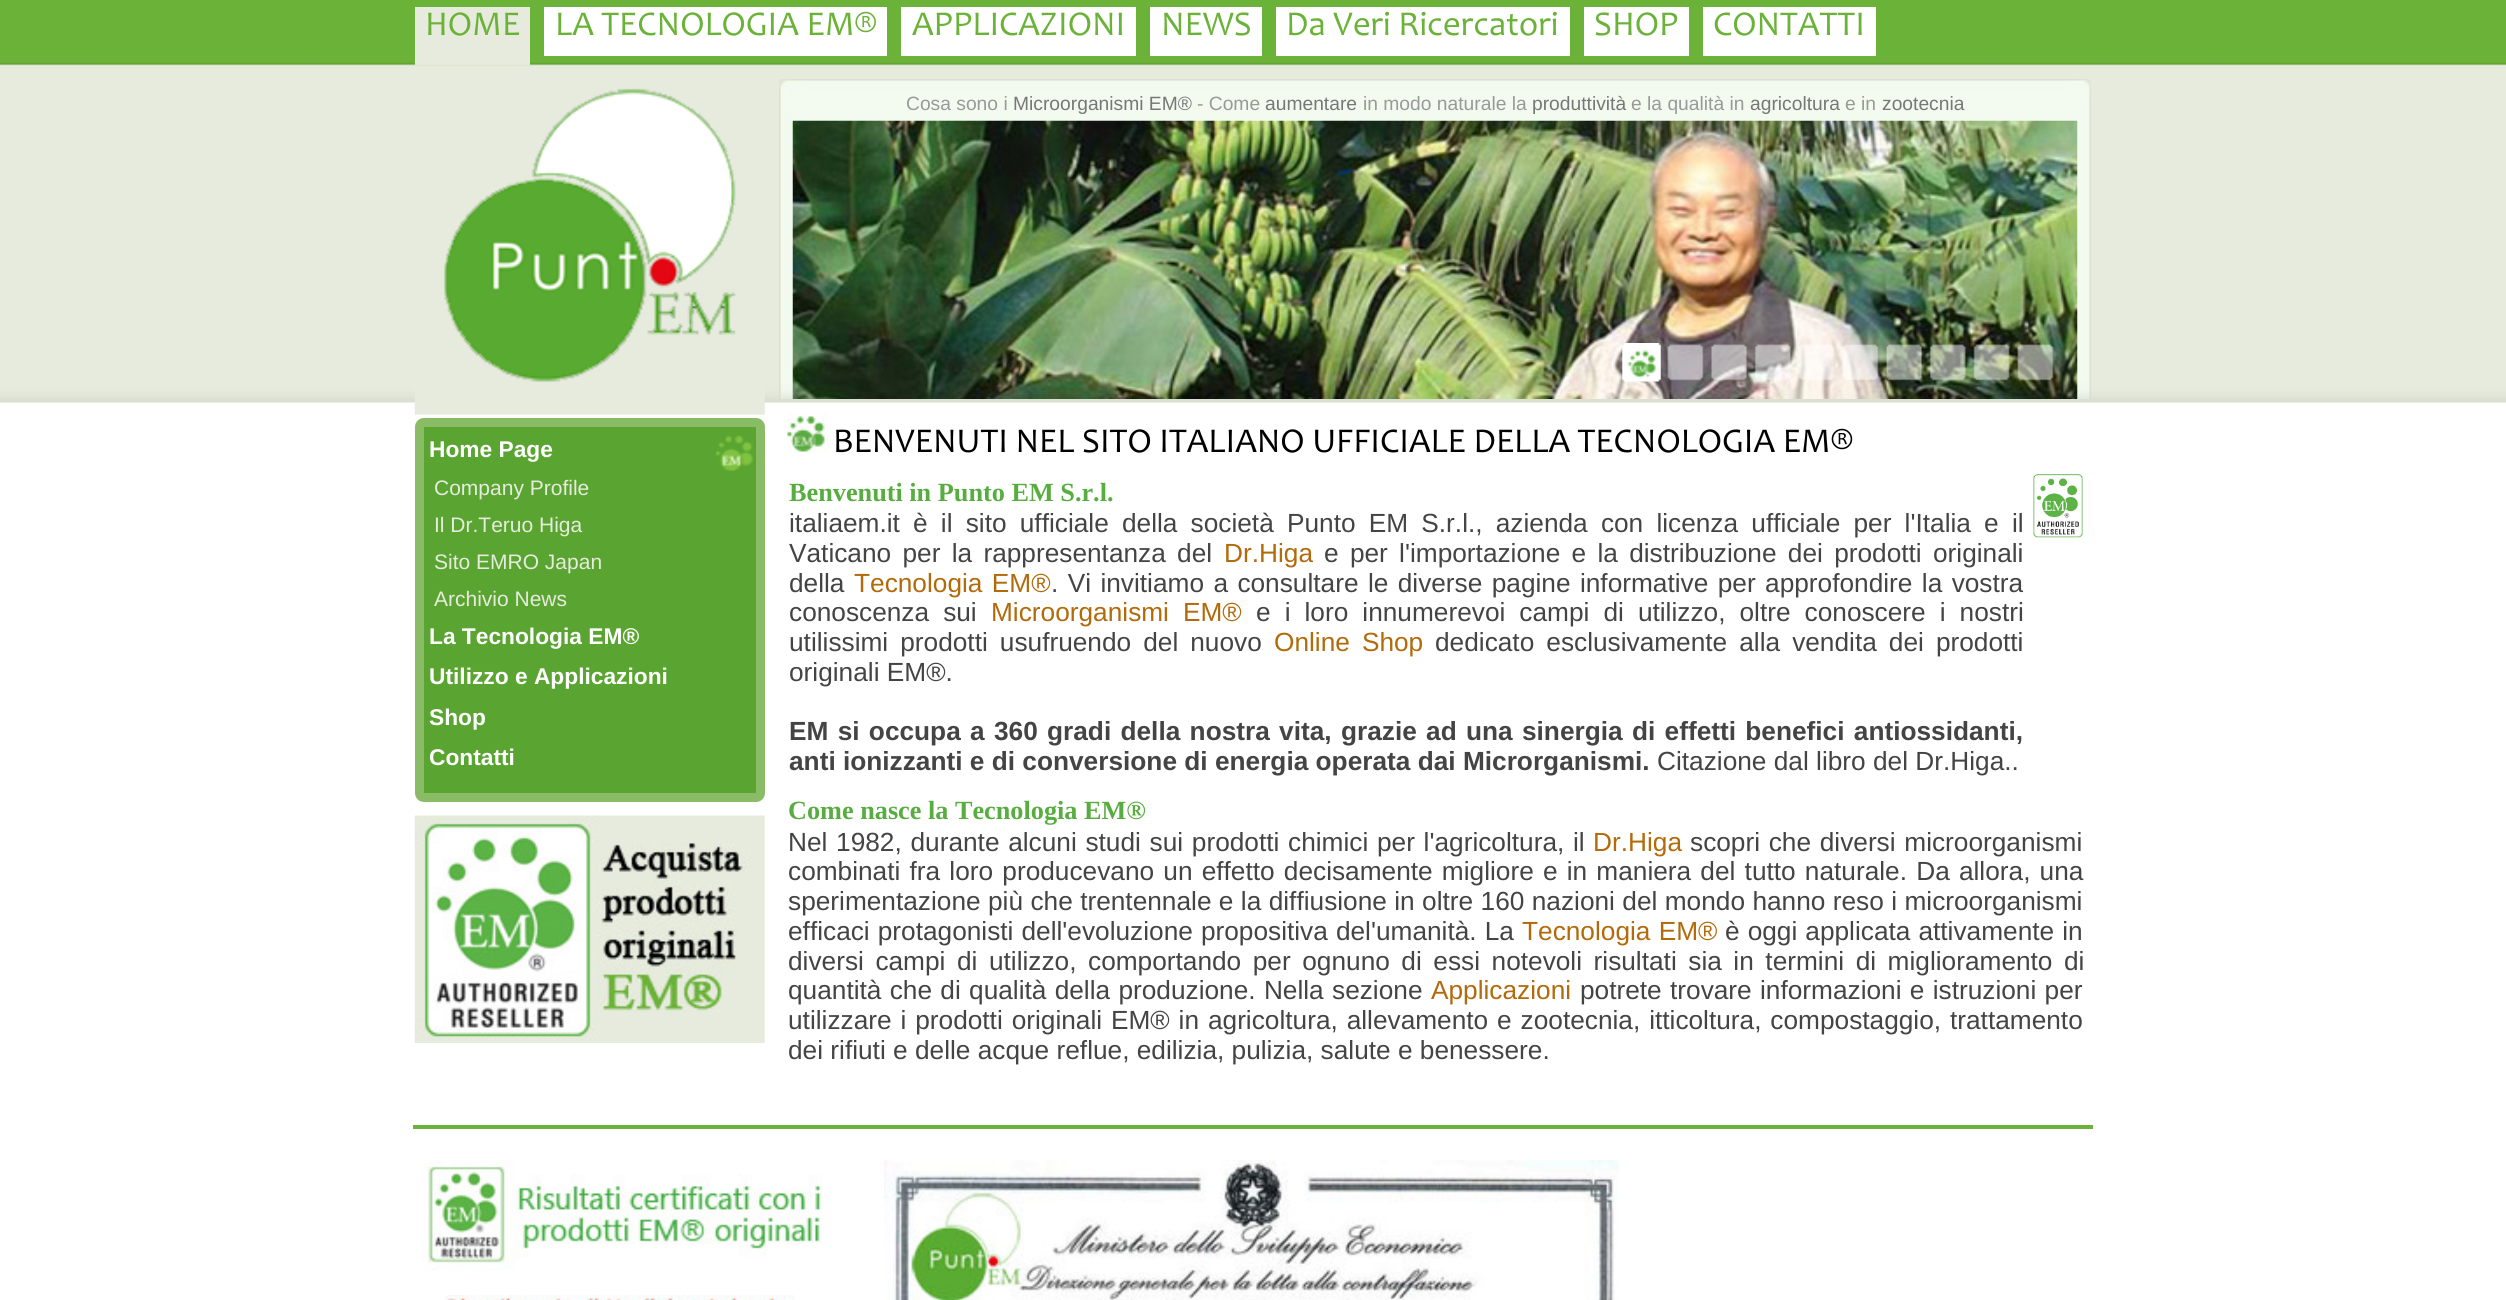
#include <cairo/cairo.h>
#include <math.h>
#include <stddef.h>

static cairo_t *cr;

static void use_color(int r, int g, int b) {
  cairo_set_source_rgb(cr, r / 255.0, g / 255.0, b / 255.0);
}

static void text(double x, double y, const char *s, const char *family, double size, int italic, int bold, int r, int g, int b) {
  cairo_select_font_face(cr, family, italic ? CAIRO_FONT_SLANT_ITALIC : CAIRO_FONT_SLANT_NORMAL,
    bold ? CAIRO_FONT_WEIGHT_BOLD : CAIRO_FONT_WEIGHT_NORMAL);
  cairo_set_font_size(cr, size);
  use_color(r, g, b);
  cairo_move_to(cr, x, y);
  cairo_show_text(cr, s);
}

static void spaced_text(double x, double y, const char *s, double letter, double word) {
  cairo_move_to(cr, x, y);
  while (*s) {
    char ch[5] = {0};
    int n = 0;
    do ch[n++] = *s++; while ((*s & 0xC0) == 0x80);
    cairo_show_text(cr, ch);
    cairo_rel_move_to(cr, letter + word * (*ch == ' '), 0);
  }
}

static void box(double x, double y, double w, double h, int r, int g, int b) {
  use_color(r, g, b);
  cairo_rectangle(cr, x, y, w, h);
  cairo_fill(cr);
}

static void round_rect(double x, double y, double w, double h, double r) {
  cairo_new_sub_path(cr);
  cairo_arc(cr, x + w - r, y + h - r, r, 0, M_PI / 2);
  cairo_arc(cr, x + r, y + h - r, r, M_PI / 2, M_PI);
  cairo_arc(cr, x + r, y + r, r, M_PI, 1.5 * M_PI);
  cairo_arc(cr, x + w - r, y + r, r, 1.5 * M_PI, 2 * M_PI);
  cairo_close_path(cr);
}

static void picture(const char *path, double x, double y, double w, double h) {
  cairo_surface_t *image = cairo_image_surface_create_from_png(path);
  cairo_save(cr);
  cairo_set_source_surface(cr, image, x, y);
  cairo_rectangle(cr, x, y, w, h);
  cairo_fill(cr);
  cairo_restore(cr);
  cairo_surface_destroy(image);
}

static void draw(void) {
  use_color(255, 255, 255);
  cairo_paint(cr);
  picture("img_01.png", 0, 0, 2506, 403);
  box(415, 7, 115, 58, 230, 235, 221);
  box(544, 7, 343, 49, 255, 255, 255);
  box(901, 7, 235, 49, 255, 255, 255);
  box(1150, 7, 112, 49, 255, 255, 255);
  box(1276, 7, 294, 49, 255, 255, 255);
  box(1584, 7, 105, 49, 255, 255, 255);
  box(1703, 7, 173, 49, 255, 255, 255);
  picture("img_02.png", 414, 88, 351, 327);
  use_color(90, 165, 49);
  round_rect(419.5, 422.5, 341, 375, 4.5);
  cairo_fill_preserve(cr);
  use_color(137, 188, 101);
  cairo_set_line_width(cr, 9);
  cairo_stroke(cr);
  picture("img_03.png", 715, 435, 38, 36);
  picture("img_04.png", 414, 815, 351, 228);
  picture("img_05.png", 779, 79, 1312, 320);
  picture("img_06.png", 792, 120, 1286, 279);
  picture("img_07.png", 1622, 343, 39, 39);
  picture("img_08.png", 1667, 344, 37, 37);
  picture("img_09.png", 1711, 344, 36, 37);
  picture("img_10.png", 1754, 344, 37, 37);
  picture("img_11.png", 1798, 344, 37, 37);
  picture("img_12.png", 1842, 344, 37, 37);
  picture("img_13.png", 1886, 344, 36, 37);
  picture("img_14.png", 1929, 344, 37, 37);
  picture("img_15.png", 1973, 344, 37, 37);
  picture("img_16.png", 2017, 344, 37, 37);
  picture("img_17.png", 787, 413, 42, 39);
  picture("img_18.png", 2033, 474, 50, 64);
  box(413, 1125, 1680, 4, 107, 178, 57);
  picture("img_19.png", 422, 1160, 401, 111);
  picture("img_20.png", 444, 1295, 351, 5);
  picture("img_21.png", 884, 1160, 735, 140);
  text(425, 35, "HOME", "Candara", 35, 0, 0, 107, 178, 57);
  text(555, 35, "LA TECNOLOGIA EM®", "Candara", 35, 0, 0, 107, 178, 57);
  text(912, 35, "APPLICAZIONI", "Candara", 35, 0, 0, 107, 178, 57);
  text(1161, 35, "NEWS", "Candara", 35, 0, 0, 107, 178, 57);
  text(1286, 35, "Da Veri Ricercatori", "Candara", 35, 0, 0, 107, 178, 57);
  text(1594, 35, "SHOP", "Candara", 35, 0, 0, 107, 178, 57);
  text(1713, 35, "CONTATTI", "Candara", 35, 0, 0, 107, 178, 57);
  text(429, 457, "Home Page", "Liberation Sans", 22.75, 0, 1, 255, 255, 255);
  text(434, 495, "Company Profile", "Liberation Sans", 21, 0, 0, 230, 235, 221);
  text(434, 532, "Il Dr.Teruo Higa", "Liberation Sans", 21, 0, 0, 230, 235, 221);
  text(434, 569, "Sito EMRO Japan", "Liberation Sans", 21, 0, 0, 230, 235, 221);
  text(434, 606, "Archivio News", "Liberation Sans", 21, 0, 0, 230, 235, 221);
  text(429, 644, "La Tecnologia EM®", "Liberation Sans", 22.75, 0, 1, 255, 255, 255);
  text(429, 684, "Utilizzo e Applicazioni", "Liberation Sans", 22.75, 0, 1, 255, 255, 255);
  text(429, 725, "Shop", "Liberation Sans", 22.75, 0, 1, 255, 255, 255);
  text(429, 765, "Contatti", "Liberation Sans", 22.75, 0, 1, 255, 255, 255);
  text(906, 110, "Cosa sono i", "Liberation Sans", 19.25, 0, 0, 153, 153, 153);
  text(1013, 110, "Microorganismi EM®", "Liberation Sans", 19.25, 0, 0, 119, 119, 119);
  text(1197, 110, "- Come", "Liberation Sans", 19.25, 0, 0, 153, 153, 153);
  text(1265, 110, "aumentare", "Liberation Sans", 19.25, 0, 0, 119, 119, 119);
  text(1363, 110, "in modo naturale la", "Liberation Sans", 19.25, 0, 0, 153, 153, 153);
  text(1532, 110, "produttività", "Liberation Sans", 19.25, 0, 0, 119, 119, 119);
  text(1631, 110, "e la qualità in", "Liberation Sans", 19.25, 0, 0, 153, 153, 153);
  text(1750, 110, "agricoltura", "Liberation Sans", 19.25, 0, 0, 119, 119, 119);
  text(1845, 110, "e in", "Liberation Sans", 19.25, 0, 0, 153, 153, 153);
  text(1882, 110, "zootecnia", "Liberation Sans", 19.25, 0, 0, 119, 119, 119);
  text(833, 452, "BENVENUTI NEL SITO ITALIANO UFFICIALE DELLA TECNOLOGIA EM®", "Candara", 35, 0, 0, 0, 0, 0);
  text(789, 501, "Benvenuti in Punto EM S.r.l.", "Liberation Serif", 26.25, 0, 1, 88, 173, 64);
  cairo_select_font_face(cr, "Liberation Sans", CAIRO_FONT_SLANT_NORMAL, CAIRO_FONT_WEIGHT_NORMAL);
  use_color(68, 68, 68);
  spaced_text(789, 532, "italiaem.it è il sito ufficiale della società Punto EM S.r.l., azienda con licenza ufficiale per l'Italia e il", 0, 5.9);
  spaced_text(789, 562, "Vaticano per la rappresentanza del", 0, 4);
  text(1224, 562, "Dr.Higa", "Liberation Sans", 26.25, 0, 0, 178, 106, 10);
  use_color(68, 68, 68);
  spaced_text(1324, 562, "e per l'importazione e la distribuzione dei prodotti originali", 0, 4);
  text(789, 592, "della", "Liberation Sans", 26.25, 0, 0, 68, 68, 68);
  use_color(178, 106, 10);
  spaced_text(854, 592, "Tecnologia EM®", 0, 2.1);
  use_color(68, 68, 68);
  spaced_text(1051, 592, ". Vi invitiamo a consultare le diverse pagine informative per approfondire la vostra", 0, 2.1);
  spaced_text(789, 621, "conoscenza sui", 0, 6.75);
  use_color(178, 106, 10);
  spaced_text(991, 621, "Microorganismi EM®", 0, 6.75);
  use_color(68, 68, 68);
  spaced_text(1256, 621, "e i loro innumerevoi campi di utilizzo, oltre conoscere i nostri", 0, 6.75);
  spaced_text(789, 651, "utilissimi prodotti usufruendo del nuovo", 0, 4.75);
  use_color(178, 106, 10);
  spaced_text(1274, 651, "Online Shop", 0, 4.75);
  use_color(68, 68, 68);
  spaced_text(1435, 651, "dedicato esclusivamente alla vendita dei prodotti", 0, 4.75);
  text(789, 681, "originali EM®.", "Liberation Sans", 26.25, 0, 0, 68, 68, 68);
  cairo_select_font_face(cr, "Liberation Sans", CAIRO_FONT_SLANT_NORMAL, CAIRO_FONT_WEIGHT_BOLD);
  spaced_text(789, 740, "EM si occupa a 360 gradi della nostra vita, grazie ad una sinergia di effetti benefici antiossidanti,", 0, 2);
  text(789, 770, "anti ionizzanti e di conversione di energia operata dai Microrganismi.", "Liberation Sans", 26.25, 0, 1, 68, 68, 68);
  text(1657, 770, "Citazione dal libro del Dr.Higa..", "Liberation Sans", 26.25, 0, 0, 68, 68, 68);
  text(788, 819, "Come nasce la Tecnologia EM®", "Liberation Serif", 26.25, 0, 1, 88, 173, 64);
  cairo_select_font_face(cr, "Liberation Sans", CAIRO_FONT_SLANT_NORMAL, CAIRO_FONT_WEIGHT_NORMAL);
  use_color(68, 68, 68);
  spaced_text(788, 851, "Nel 1982, durante alcuni studi sui prodotti chimici per l'agricoltura, il", 0, 1.4);
  text(1593, 851, "Dr.Higa", "Liberation Sans", 26.25, 0, 0, 178, 106, 10);
  use_color(68, 68, 68);
  spaced_text(1690, 851, "scopri che diversi microorganismi", 0, 1.4);
  spaced_text(788, 880, "combinati fra loro producevano un effetto decisamente migliore e in maniera del tutto naturale. Da allora, una", 0, 1.9);
  spaced_text(788, 910, "sperimentazione più che trentennale e la diffiusione in oltre 160 nazioni del mondo hanno reso i microorganismi", 0, 0.1);
  spaced_text(788, 940, "efficaci protagonisti dell'evoluzione propositiva del'umanità. La", 0, 0.75);
  use_color(178, 106, 10);
  spaced_text(1522, 940, "Tecnologia EM®", 0, 1);
  use_color(68, 68, 68);
  spaced_text(1725, 940, "è oggi applicata attivamente in", 0, 0.75);
  spaced_text(788, 970, "diversi campi di utilizzo, comportando per ognuno di essi notevoli risultati sia in termini di miglioramento di", 0, 4.25);
  spaced_text(788, 999, "quantità che di qualità della produzione. Nella sezione", 0, 1);
  text(1431, 999, "Applicazioni", "Liberation Sans", 26.25, 0, 0, 178, 106, 10);
  use_color(68, 68, 68);
  spaced_text(1580, 999, "potrete trovare informazioni e istruzioni per", 0, 1);
  spaced_text(788, 1029, "utilizzare i prodotti originali EM® in agricoltura, allevamento e zootecnia, itticoltura, compostaggio, trattamento", 0, 1.6);
  text(788, 1059, "dei rifiuti e delle acque reflue, edilizia, pulizia, salute e benessere.", "Liberation Sans", 26.25, 0, 0, 68, 68, 68);
}

int main(void) {
  cairo_surface_t *surface = cairo_image_surface_create(CAIRO_FORMAT_RGB24, 2506, 1300);
  cr = cairo_create(surface);
  cairo_font_options_t *options = cairo_font_options_create();
  cairo_font_options_set_hint_metrics(options, CAIRO_HINT_METRICS_OFF);
  cairo_font_options_set_hint_style(options, CAIRO_HINT_STYLE_NONE);
  cairo_set_font_options(cr, options);
  cairo_set_miter_limit(cr, 4);
  draw();
  cairo_surface_write_to_png(surface, "out.png");
  cairo_font_options_destroy(options);
  cairo_destroy(cr);
  cairo_surface_destroy(surface);
  return 0;
}
